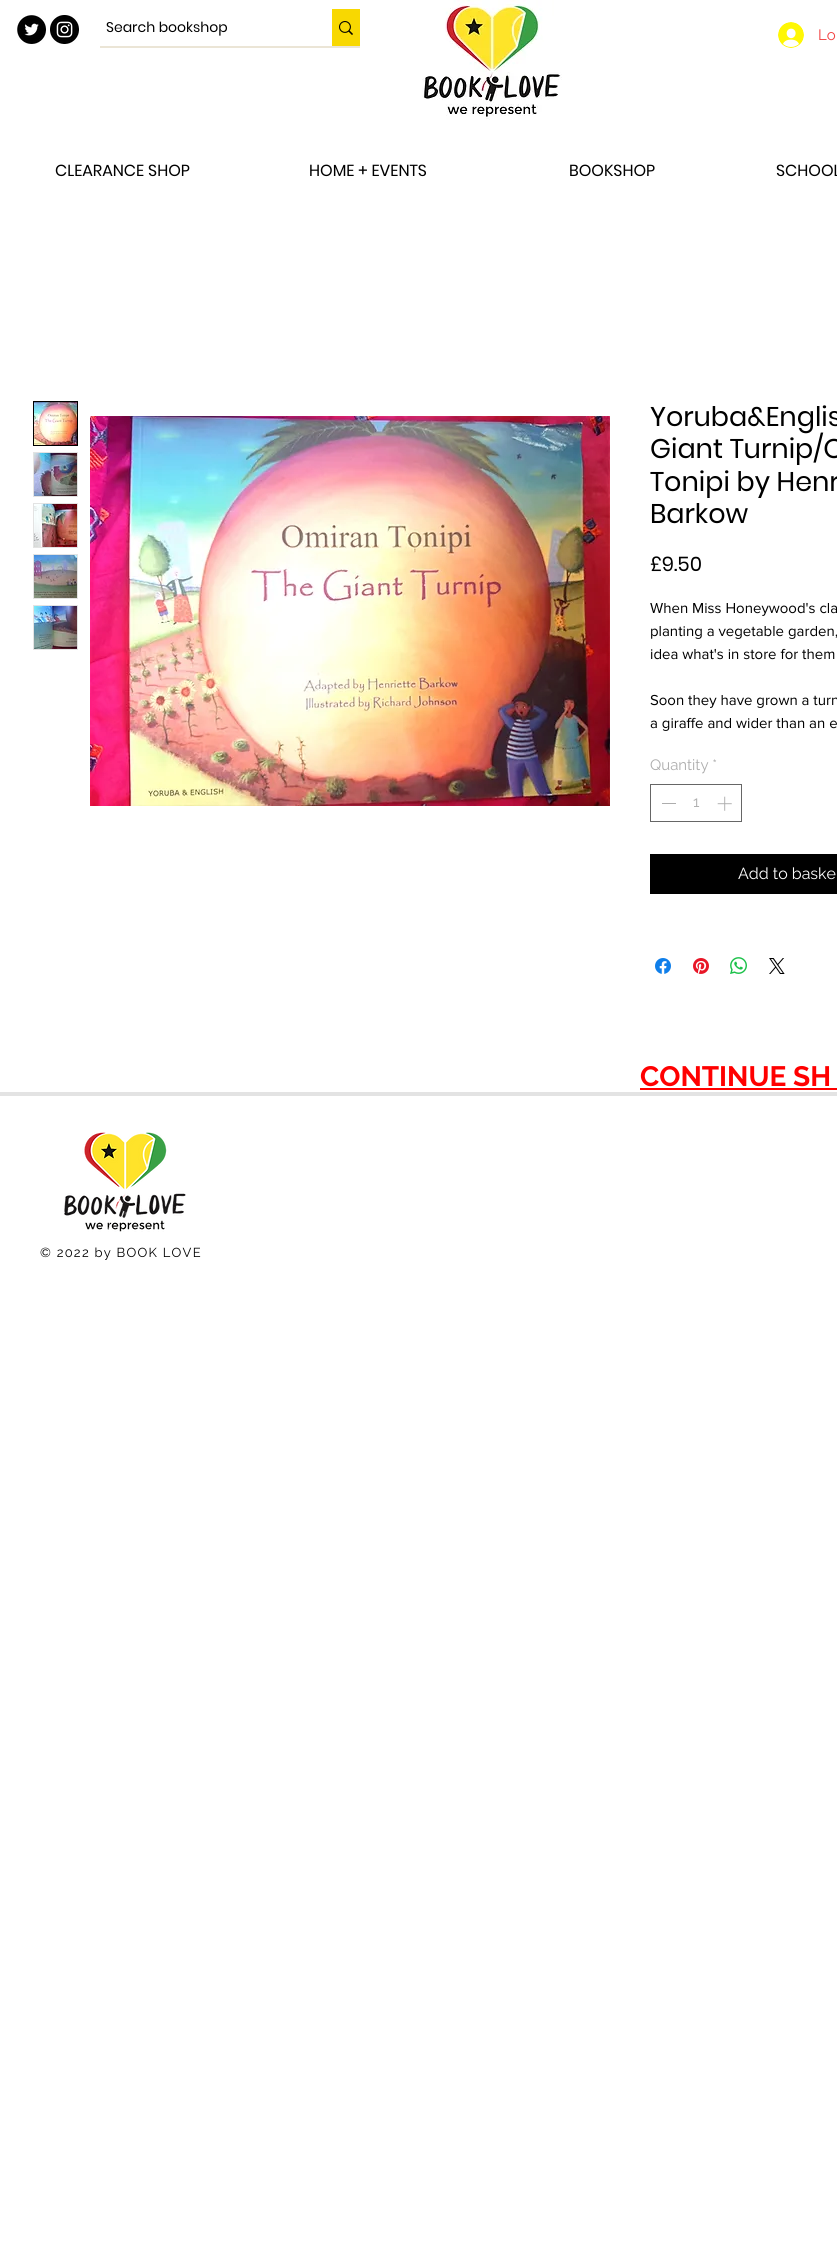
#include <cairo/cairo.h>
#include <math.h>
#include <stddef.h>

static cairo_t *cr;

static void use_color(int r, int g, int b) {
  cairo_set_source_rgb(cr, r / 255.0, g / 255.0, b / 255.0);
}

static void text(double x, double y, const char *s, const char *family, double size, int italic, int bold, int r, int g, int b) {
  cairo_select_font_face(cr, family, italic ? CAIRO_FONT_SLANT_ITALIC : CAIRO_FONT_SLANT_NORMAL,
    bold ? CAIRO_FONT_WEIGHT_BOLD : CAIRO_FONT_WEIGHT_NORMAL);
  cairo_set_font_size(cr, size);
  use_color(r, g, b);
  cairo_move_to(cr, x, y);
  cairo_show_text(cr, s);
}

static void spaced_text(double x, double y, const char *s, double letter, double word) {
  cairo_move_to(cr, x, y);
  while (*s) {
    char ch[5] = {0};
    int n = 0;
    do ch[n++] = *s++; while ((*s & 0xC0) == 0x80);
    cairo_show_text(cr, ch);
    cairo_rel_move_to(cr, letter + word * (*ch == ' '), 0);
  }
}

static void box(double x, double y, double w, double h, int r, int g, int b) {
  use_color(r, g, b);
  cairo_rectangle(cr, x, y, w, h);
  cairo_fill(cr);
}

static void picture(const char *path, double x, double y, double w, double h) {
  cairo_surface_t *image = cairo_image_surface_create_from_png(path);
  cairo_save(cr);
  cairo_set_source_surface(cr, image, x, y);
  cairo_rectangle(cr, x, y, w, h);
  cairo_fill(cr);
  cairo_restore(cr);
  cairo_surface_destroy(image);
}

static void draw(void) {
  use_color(255, 255, 255);
  cairo_paint(cr);
  picture("img_01.png", 17, 15, 29, 29);
  picture("img_02.png", 50, 15, 29, 29);
  box(100, 46, 260, 2, 235, 229, 214);
  box(332, 9, 28, 37, 248, 216, 1);
  picture("img_03.png", 339, 21, 14, 14);
  picture("img_04.png", 422, 0, 140, 120);
  picture("img_05.png", 778, 22, 26, 26);
  cairo_rectangle(cr, 33.5, 401.5, 44, 44);
  use_color(0, 0, 0);
  cairo_set_line_width(cr, 1);
  cairo_stroke(cr);
  picture("img_06.png", 34, 402, 43, 43);
  cairo_rectangle(cr, 33.5, 452.5, 44, 44);
  use_color(227, 227, 227);
  cairo_stroke(cr);
  picture("img_07.png", 34, 453, 43, 43);
  cairo_rectangle(cr, 33.5, 503.5, 44, 44);
  cairo_stroke(cr);
  picture("img_08.png", 34, 504, 43, 43);
  cairo_rectangle(cr, 33.5, 554.5, 44, 44);
  cairo_stroke(cr);
  picture("img_09.png", 34, 555, 43, 43);
  cairo_rectangle(cr, 33.5, 605.5, 44, 44);
  cairo_stroke(cr);
  picture("img_10.png", 34, 606, 43, 43);
  picture("img_11.png", 90, 416, 520, 390);
  cairo_rectangle(cr, 650.5, 784.5, 91, 37);
  use_color(102, 102, 102);
  cairo_stroke(cr);
  box(662, 803, 14, 1, 173, 173, 173);
  picture("img_12.png", 717, 796, 15, 15);
  box(650, 854, 187, 40, 0, 0, 0);
  picture("img_13.png", 655, 958, 16, 16);
  picture("img_14.png", 693, 958, 16, 16);
  picture("img_15.png", 730, 957, 17, 17);
  picture("img_16.png", 769, 958, 16, 16);
  box(640, 1088, 197, 2, 255, 0, 0);
  box(0, 1092, 837, 4, 227, 227, 227);
  picture("img_17.png", 64, 1132, 122, 100);
  text(106, 32, "Search bookshop", "Poppins", 14, 0, 0, 0, 0, 0);
  text(818, 40, "Lo", "Raleway", 15, 0, 0, 242, 65, 65);
  text(55, 176, "CLEARANCE SHOP", "Poppins", 16, 0, 0, 0, 0, 0);
  text(309, 176, "HOME + EVENTS", "Poppins", 16, 0, 0, 0, 0, 0);
  text(569, 176, "BOOKSHOP", "Poppins", 16, 0, 0, 0, 0, 0);
  text(776, 176, "SCHOOL", "Poppins", 16, 0, 0, 0, 0, 0);
  text(650, 426, "Yoruba&Englis", "Poppins", 27, 0, 0, 0, 0, 0);
  text(650, 458, "Giant Turnip/O", "Poppins", 27, 0, 0, 0, 0, 0);
  text(650, 491, "Tonipi by Henr", "Poppins", 27, 0, 0, 0, 0, 0);
  text(650, 523, "Barkow", "Poppins", 27, 0, 0, 0, 0, 0);
  text(650, 571, "£9.50", "Poppins", 20, 0, 0, 0, 0, 0);
  text(650, 613, "When Miss Honeywood's cla", "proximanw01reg", 15, 0, 0, 0, 0, 0);
  text(650, 636, "planting a vegetable garden,", "proximanw01reg", 15, 0, 0, 0, 0, 0);
  text(650, 659, "idea what's in store for them", "proximanw01reg", 15, 0, 0, 0, 0, 0);
  text(650, 705, "Soon they have grown a turn", "proximanw01reg", 15, 0, 0, 0, 0, 0);
  text(650, 728, "a giraffe and wider than an e", "proximanw01reg", 15, 0, 0, 0, 0, 0);
  text(650, 770, "Quantity *", "Raleway", 15, 0, 0, 173, 173, 173);
  text(693, 807, "1", "Raleway", 15, 0, 0, 173, 173, 173);
  text(738, 879, "Add to baske", "Raleway", 16, 0, 0, 255, 255, 255);
  text(640, 1086, "CONTINUE SH", "Raleway", 28, 0, 1, 255, 0, 0);
  cairo_select_font_face(cr, "Raleway", CAIRO_FONT_SLANT_NORMAL, CAIRO_FONT_WEIGHT_NORMAL);
  cairo_set_font_size(cr, 13);
  use_color(0, 0, 0);
  spaced_text(40, 1257, "© 2022 by BOOK LOVE", 1.25, 0);
}

int main(void) {
  cairo_surface_t *surface = cairo_image_surface_create(CAIRO_FORMAT_RGB24, 837, 2246);
  cr = cairo_create(surface);
  cairo_font_options_t *options = cairo_font_options_create();
  cairo_font_options_set_hint_metrics(options, CAIRO_HINT_METRICS_OFF);
  cairo_font_options_set_hint_style(options, CAIRO_HINT_STYLE_NONE);
  cairo_set_font_options(cr, options);
  cairo_set_miter_limit(cr, 4);
  draw();
  cairo_surface_write_to_png(surface, "out.png");
  cairo_font_options_destroy(options);
  cairo_destroy(cr);
  cairo_surface_destroy(surface);
  return 0;
}
